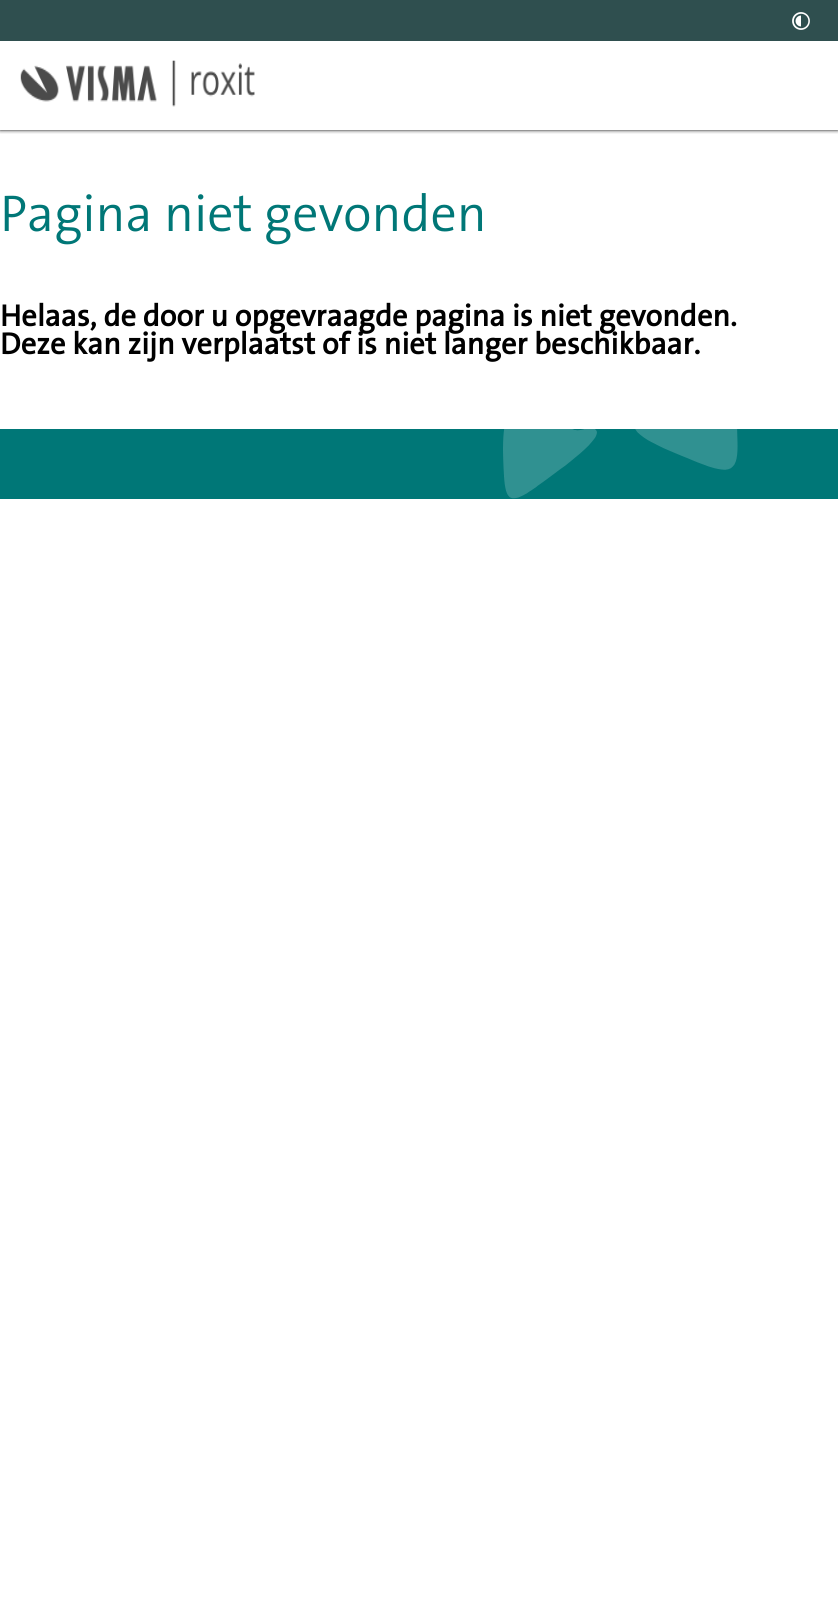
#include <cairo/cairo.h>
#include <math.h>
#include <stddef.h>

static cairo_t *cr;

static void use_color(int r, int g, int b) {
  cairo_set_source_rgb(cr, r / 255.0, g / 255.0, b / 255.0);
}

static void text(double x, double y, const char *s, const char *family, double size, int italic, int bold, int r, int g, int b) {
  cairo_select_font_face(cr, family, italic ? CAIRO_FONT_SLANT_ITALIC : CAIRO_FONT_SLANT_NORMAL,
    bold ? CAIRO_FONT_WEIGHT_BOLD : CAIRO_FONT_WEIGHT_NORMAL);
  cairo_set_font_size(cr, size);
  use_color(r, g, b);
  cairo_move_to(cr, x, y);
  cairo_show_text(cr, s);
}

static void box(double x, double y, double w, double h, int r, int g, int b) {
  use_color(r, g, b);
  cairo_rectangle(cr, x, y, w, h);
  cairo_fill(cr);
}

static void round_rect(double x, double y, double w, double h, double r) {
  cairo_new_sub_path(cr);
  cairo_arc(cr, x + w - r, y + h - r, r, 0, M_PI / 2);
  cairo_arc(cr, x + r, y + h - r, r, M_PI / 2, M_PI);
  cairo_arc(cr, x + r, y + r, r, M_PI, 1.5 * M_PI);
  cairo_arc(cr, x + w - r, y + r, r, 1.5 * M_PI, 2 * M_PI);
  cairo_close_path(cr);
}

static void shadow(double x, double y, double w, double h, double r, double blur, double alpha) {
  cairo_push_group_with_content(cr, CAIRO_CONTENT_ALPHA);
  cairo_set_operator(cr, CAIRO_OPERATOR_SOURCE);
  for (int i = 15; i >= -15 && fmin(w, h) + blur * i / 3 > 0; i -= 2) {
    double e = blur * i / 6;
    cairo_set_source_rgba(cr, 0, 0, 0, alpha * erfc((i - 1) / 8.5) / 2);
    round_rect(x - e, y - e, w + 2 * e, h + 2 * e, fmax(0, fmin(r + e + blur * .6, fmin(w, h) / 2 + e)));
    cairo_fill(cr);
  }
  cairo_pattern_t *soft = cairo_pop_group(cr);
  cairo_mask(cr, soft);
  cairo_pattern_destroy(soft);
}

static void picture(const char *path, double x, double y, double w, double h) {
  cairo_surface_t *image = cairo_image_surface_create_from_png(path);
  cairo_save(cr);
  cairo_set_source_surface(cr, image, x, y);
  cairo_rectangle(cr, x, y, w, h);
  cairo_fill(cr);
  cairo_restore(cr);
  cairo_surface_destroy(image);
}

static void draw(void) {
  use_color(255, 255, 255);
  cairo_paint(cr);
  cairo_save(cr);
  cairo_rectangle(cr, 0, 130, 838, 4);
  cairo_clip(cr);
  use_color(0, 0, 0);
  shadow(0, 0, 838, 130, 0, 2, 1);
  cairo_restore(cr);
  box(0, 0, 838, 41, 47, 79, 79);
  picture("img_01.png", 792, 12, 18, 18);
  picture("img_02.png", 20, 60, 235, 47);
  box(0, 429, 838, 70, 0, 119, 119);
  picture("img_03.png", 503, 429, 235, 70);
  text(0, 231, "Pagina niet gevonden", "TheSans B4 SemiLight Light", 52, 0, 0, 0, 119, 119);
  text(0, 326, "Helaas, de door u opgevraagde pagina is niet gevonden.", "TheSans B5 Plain", 30.6, 0, 1, 0, 0, 0);
  text(0, 354, "Deze kan zijn verplaatst of is niet langer beschikbaar.", "TheSans B5 Plain", 30.6, 0, 1, 0, 0, 0);
}

int main(void) {
  cairo_surface_t *surface = cairo_image_surface_create(CAIRO_FORMAT_RGB24, 838, 1613);
  cr = cairo_create(surface);
  cairo_font_options_t *options = cairo_font_options_create();
  cairo_font_options_set_hint_metrics(options, CAIRO_HINT_METRICS_OFF);
  cairo_font_options_set_hint_style(options, CAIRO_HINT_STYLE_NONE);
  cairo_set_font_options(cr, options);
  cairo_set_miter_limit(cr, 4);
  draw();
  cairo_surface_write_to_png(surface, "out.png");
  cairo_font_options_destroy(options);
  cairo_destroy(cr);
  cairo_surface_destroy(surface);
  return 0;
}
